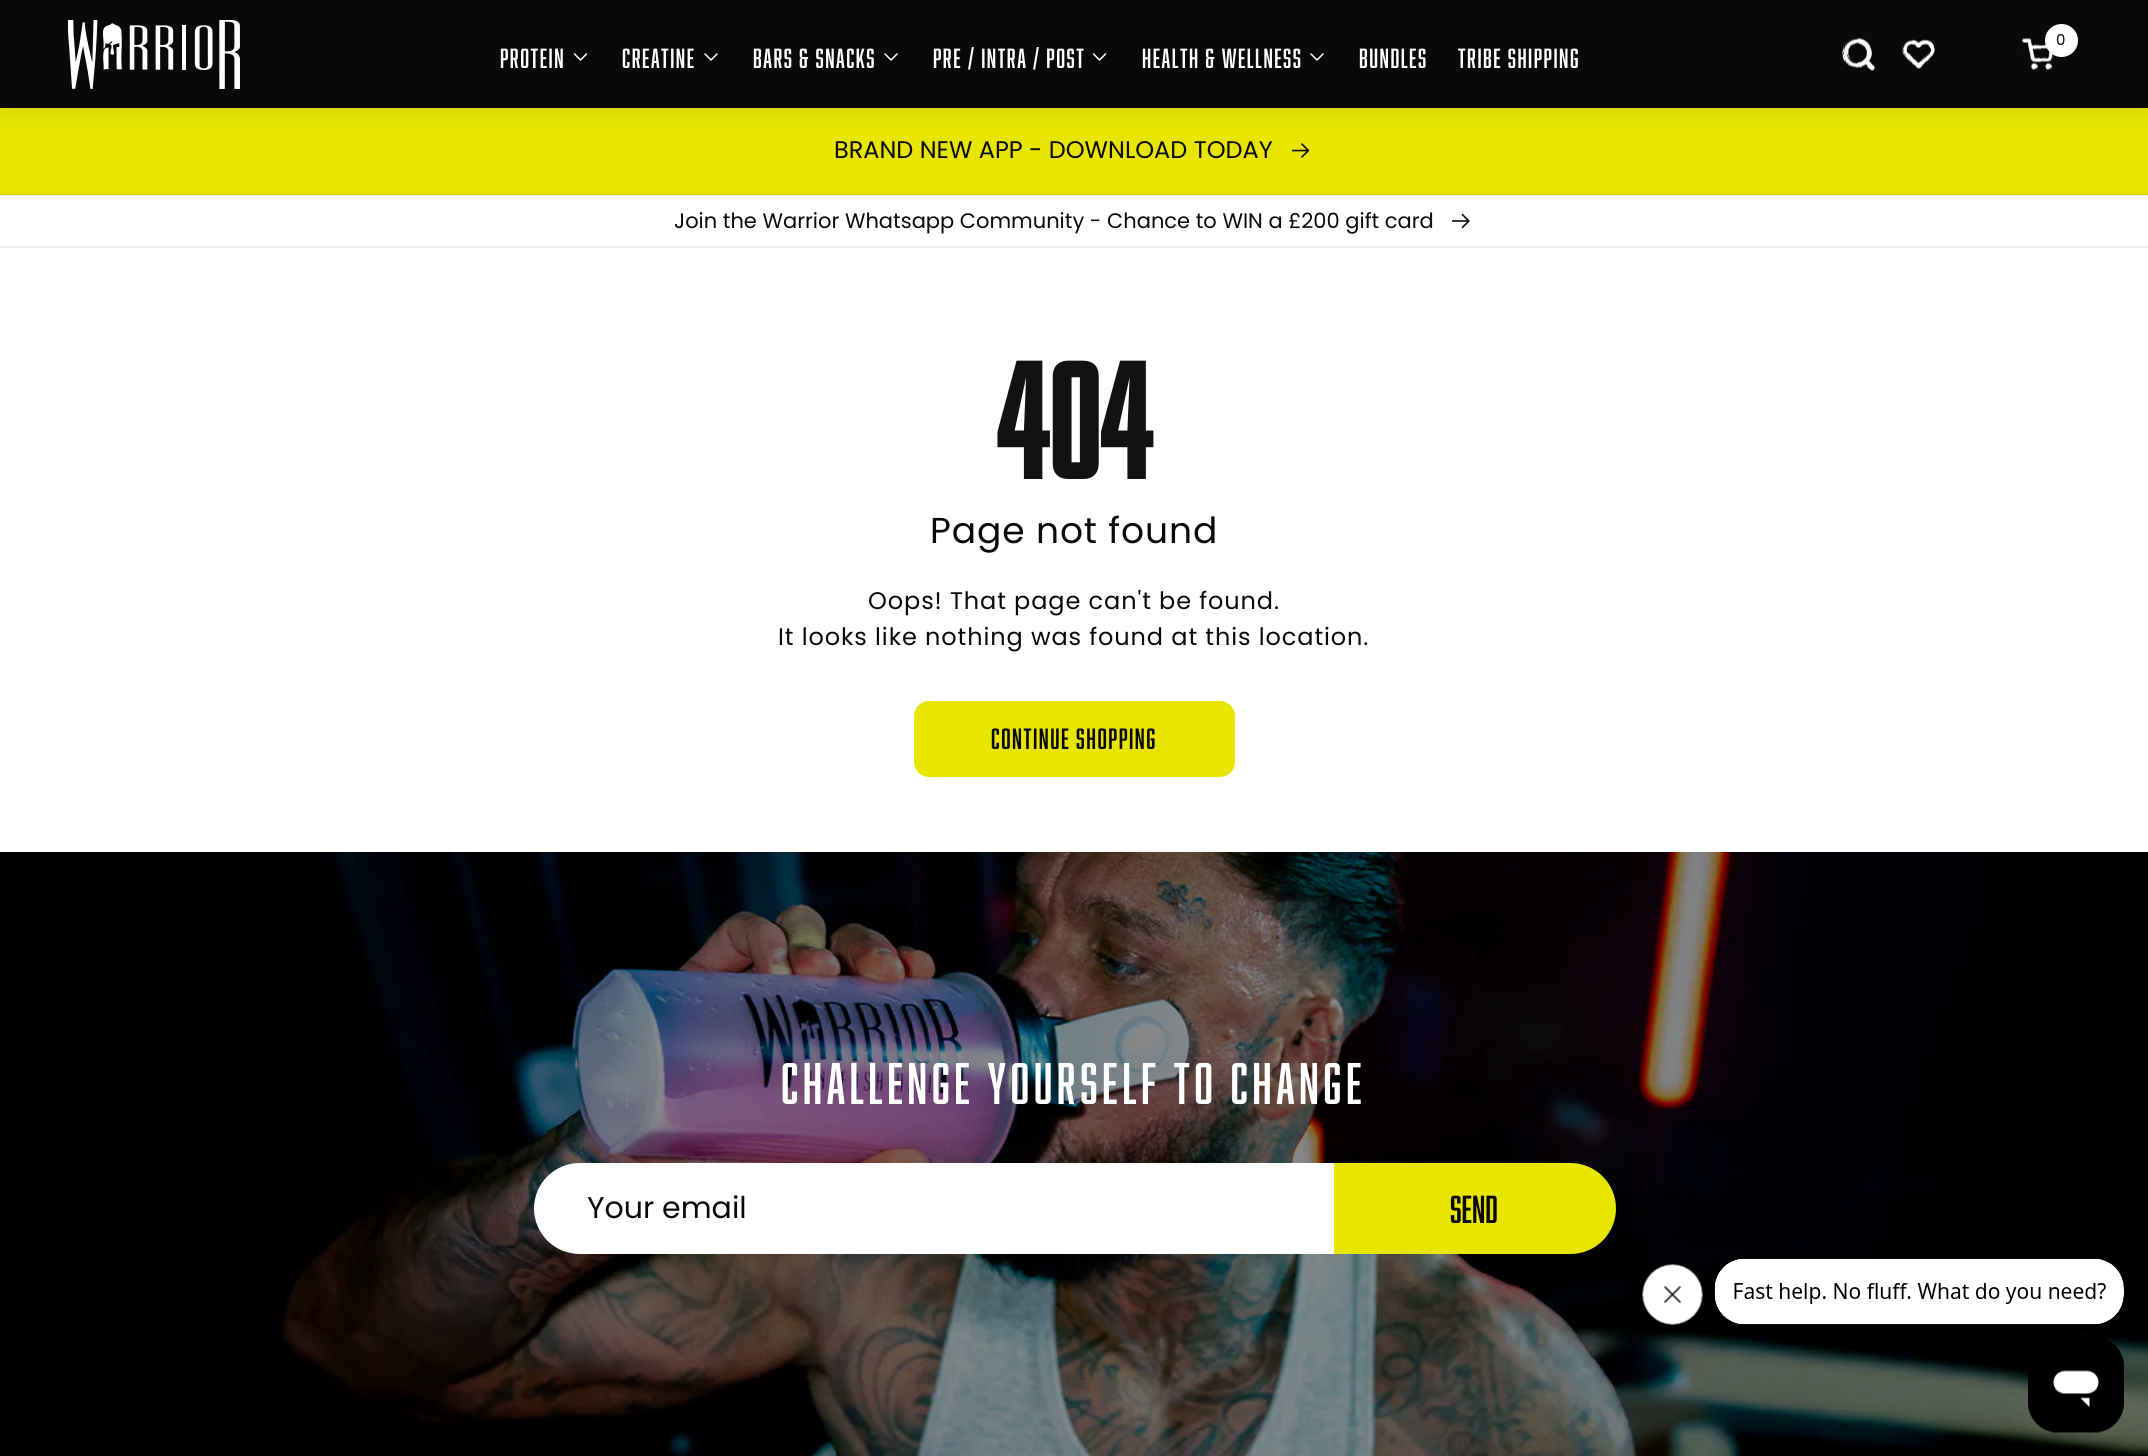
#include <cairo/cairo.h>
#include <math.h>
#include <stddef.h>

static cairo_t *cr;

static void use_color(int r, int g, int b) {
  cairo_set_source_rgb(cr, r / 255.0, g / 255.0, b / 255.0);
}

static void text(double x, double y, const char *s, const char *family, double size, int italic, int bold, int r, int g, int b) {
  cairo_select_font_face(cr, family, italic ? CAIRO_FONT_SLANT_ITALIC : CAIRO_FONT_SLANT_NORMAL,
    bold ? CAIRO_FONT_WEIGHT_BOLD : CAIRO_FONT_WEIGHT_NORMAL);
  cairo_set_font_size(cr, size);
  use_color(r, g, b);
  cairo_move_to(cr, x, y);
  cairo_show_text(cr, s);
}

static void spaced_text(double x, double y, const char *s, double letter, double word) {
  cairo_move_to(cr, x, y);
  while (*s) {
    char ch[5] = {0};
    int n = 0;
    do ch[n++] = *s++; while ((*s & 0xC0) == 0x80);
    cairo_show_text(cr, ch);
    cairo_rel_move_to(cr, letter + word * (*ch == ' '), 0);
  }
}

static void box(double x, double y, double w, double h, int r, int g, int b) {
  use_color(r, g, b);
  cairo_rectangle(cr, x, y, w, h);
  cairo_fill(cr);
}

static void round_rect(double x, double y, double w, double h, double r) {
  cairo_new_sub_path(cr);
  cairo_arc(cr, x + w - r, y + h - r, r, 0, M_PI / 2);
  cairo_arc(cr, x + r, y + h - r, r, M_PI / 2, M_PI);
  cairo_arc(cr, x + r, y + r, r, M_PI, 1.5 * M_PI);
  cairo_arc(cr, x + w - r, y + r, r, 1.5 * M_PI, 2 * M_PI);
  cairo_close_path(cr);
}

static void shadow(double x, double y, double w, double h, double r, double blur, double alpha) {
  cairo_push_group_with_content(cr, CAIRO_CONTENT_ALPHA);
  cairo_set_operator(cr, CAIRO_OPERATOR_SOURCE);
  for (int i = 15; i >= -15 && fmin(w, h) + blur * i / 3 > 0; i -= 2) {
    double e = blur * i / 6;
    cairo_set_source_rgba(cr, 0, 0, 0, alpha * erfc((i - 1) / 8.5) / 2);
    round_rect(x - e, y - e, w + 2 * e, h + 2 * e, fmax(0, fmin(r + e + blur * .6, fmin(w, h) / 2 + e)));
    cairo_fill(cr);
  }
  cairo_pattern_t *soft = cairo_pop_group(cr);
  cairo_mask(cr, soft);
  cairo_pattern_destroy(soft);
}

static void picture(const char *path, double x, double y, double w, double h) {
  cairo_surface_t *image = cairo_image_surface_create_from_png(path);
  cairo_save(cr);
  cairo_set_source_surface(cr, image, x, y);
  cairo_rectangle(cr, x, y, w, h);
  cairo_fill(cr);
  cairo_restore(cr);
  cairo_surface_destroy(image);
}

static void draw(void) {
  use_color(255, 255, 255);
  cairo_paint(cr);
  box(0, 195, 2148, 1, 236, 236, 236);
  box(0, 108, 2148, 86, 232, 230, 0);
  picture("img_07.png", 1292, 143, 18, 15);
  use_color(0, 0, 0);
  shadow(0, 3, 2148, 108, 0, 13.5, 0.1);
  box(0, 0, 2148, 108, 10, 8, 8);
  picture("img_01.png", 68, 20, 172, 69);
  picture("img_02.png", 1842, 38, 33, 33);
  picture("img_03.png", 1902, 39, 33, 30);
  picture("img_04.png", 2022, 38, 32, 32);
  use_color(255, 255, 255);
  cairo_arc(cr, 2061.5, 40.5, 16.5, 0, 2 * M_PI);
  cairo_fill(cr);
  picture("img_05.png", 573, 53, 15, 8);
  picture("img_06.png", 704, 53, 14, 8);
  picture("img_06.png", 884, 53, 14, 8);
  picture("img_05.png", 1092, 53, 15, 8);
  picture("img_06.png", 1310, 53, 14, 8);
  box(0, 194, 2148, 1, 215, 213, 1);
  box(0, 246, 2148, 2, 236, 236, 236);
  picture("img_08.png", 1452, 213, 18, 16);
  use_color(232, 230, 0);
  round_rect(915, 702, 319, 74, 14);
  cairo_fill_preserve(cr);
  cairo_stroke(cr);
  picture("img_09.png", 0, 852, 2148, 604);
  use_color(255, 255, 255);
  cairo_new_path(cr);
  cairo_move_to(cr, 579.5, 1163);
  cairo_line_to(cr, 1334, 1163);
  cairo_line_to(cr, 1334, 1254);
  cairo_line_to(cr, 579.5, 1254);
  cairo_curve_to(cr, 554.5, 1254, 534, 1233.5, 534, 1208.5);
  cairo_curve_to(cr, 534, 1183.5, 554.5, 1163, 579.5, 1163);
  cairo_close_path(cr);
  cairo_fill(cr);
  use_color(232, 230, 0);
  cairo_new_path(cr);
  cairo_move_to(cr, 1335, 1164);
  cairo_line_to(cr, 1570.5, 1164);
  cairo_curve_to(cr, 1595, 1164, 1615, 1184, 1615, 1208.5);
  cairo_curve_to(cr, 1615, 1233, 1595, 1253, 1570.5, 1253);
  cairo_line_to(cr, 1335, 1253);
  cairo_close_path(cr);
  cairo_fill_preserve(cr);
  cairo_stroke(cr);
  picture("img_10.png", 1642, 1264, 61, 61);
  picture("img_11.png", 1714, 1258, 410, 67);
  picture("img_12.png", 2028, 1336, 96, 97);
  cairo_select_font_face(cr, "Poppins", CAIRO_FONT_SLANT_NORMAL, CAIRO_FONT_WEIGHT_NORMAL);
  cairo_set_font_size(cr, 15);
  use_color(10, 8, 8);
  spaced_text(2056, 45, "0", 0.9, 0);
  cairo_select_font_face(cr, "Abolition", CAIRO_FONT_SLANT_NORMAL, CAIRO_FONT_WEIGHT_NORMAL);
  cairo_set_font_size(cr, 25.5);
  use_color(255, 255, 255);
  spaced_text(500, 68, "PROTEIN", 1.5, 0);
  spaced_text(622, 68, "CREATINE", 1.5, 0);
  spaced_text(753, 68, "BARS & SNACKS", 1.5, 0);
  spaced_text(933, 68, "PRE / INTRA / POST", 1.5, 0);
  spaced_text(1142, 68, "HEALTH & WELLNESS", 1.5, 0);
  spaced_text(1359, 68, "BUNDLES", 1.5, 0);
  spaced_text(1458, 68, "TRIBE SHIPPING", 1.5, 0);
  text(834, 158, "BRAND NEW APP - DOWNLOAD TODAY", "Poppins", 24, 0, 0, 10, 8, 8);
  text(674, 228, "Join the Warrior Whatsapp Community - Chance to WIN a £200 gift card", "Poppins", 21, 0, 0, 10, 8, 8);
  cairo_select_font_face(cr, "Abolition", CAIRO_FONT_SLANT_NORMAL, CAIRO_FONT_WEIGHT_BOLD);
  cairo_set_font_size(cr, 150);
  use_color(18, 18, 18);
  spaced_text(996, 479, "404", 0.9, 0);
  cairo_select_font_face(cr, "Poppins", CAIRO_FONT_SLANT_NORMAL, CAIRO_FONT_WEIGHT_NORMAL);
  cairo_set_font_size(cr, 36);
  use_color(10, 8, 8);
  spaced_text(930, 543, "Page not found", 0.9, 0);
  cairo_set_font_size(cr, 24);
  spaced_text(868, 609, "Oops! That page can't be found.", 0.9, 0);
  spaced_text(778, 645, "It looks like nothing was found at this location.", 0.9, 0);
  cairo_select_font_face(cr, "Abolition", CAIRO_FONT_SLANT_NORMAL, CAIRO_FONT_WEIGHT_NORMAL);
  cairo_set_font_size(cr, 27);
  spaced_text(991, 749, "CONTINUE SHOPPING", 1.5, 0);
  cairo_set_font_size(cr, 54);
  use_color(255, 255, 255);
  spaced_text(781, 1104, "CHALLENGE YOURSELF TO CHANGE", 4.5, 0);
  text(587, 1218, "Your email", "Poppins", 30, 0, 0, 10, 8, 8);
  text(1450, 1223, "SEND", "Abolition", 36, 0, 0, 10, 8, 8);
}

int main(void) {
  cairo_surface_t *surface = cairo_image_surface_create(CAIRO_FORMAT_RGB24, 2148, 1456);
  cr = cairo_create(surface);
  cairo_font_options_t *options = cairo_font_options_create();
  cairo_font_options_set_hint_metrics(options, CAIRO_HINT_METRICS_OFF);
  cairo_font_options_set_hint_style(options, CAIRO_HINT_STYLE_NONE);
  cairo_set_font_options(cr, options);
  cairo_set_miter_limit(cr, 4);
  draw();
  cairo_surface_write_to_png(surface, "out.png");
  cairo_font_options_destroy(options);
  cairo_destroy(cr);
  cairo_surface_destroy(surface);
  return 0;
}
